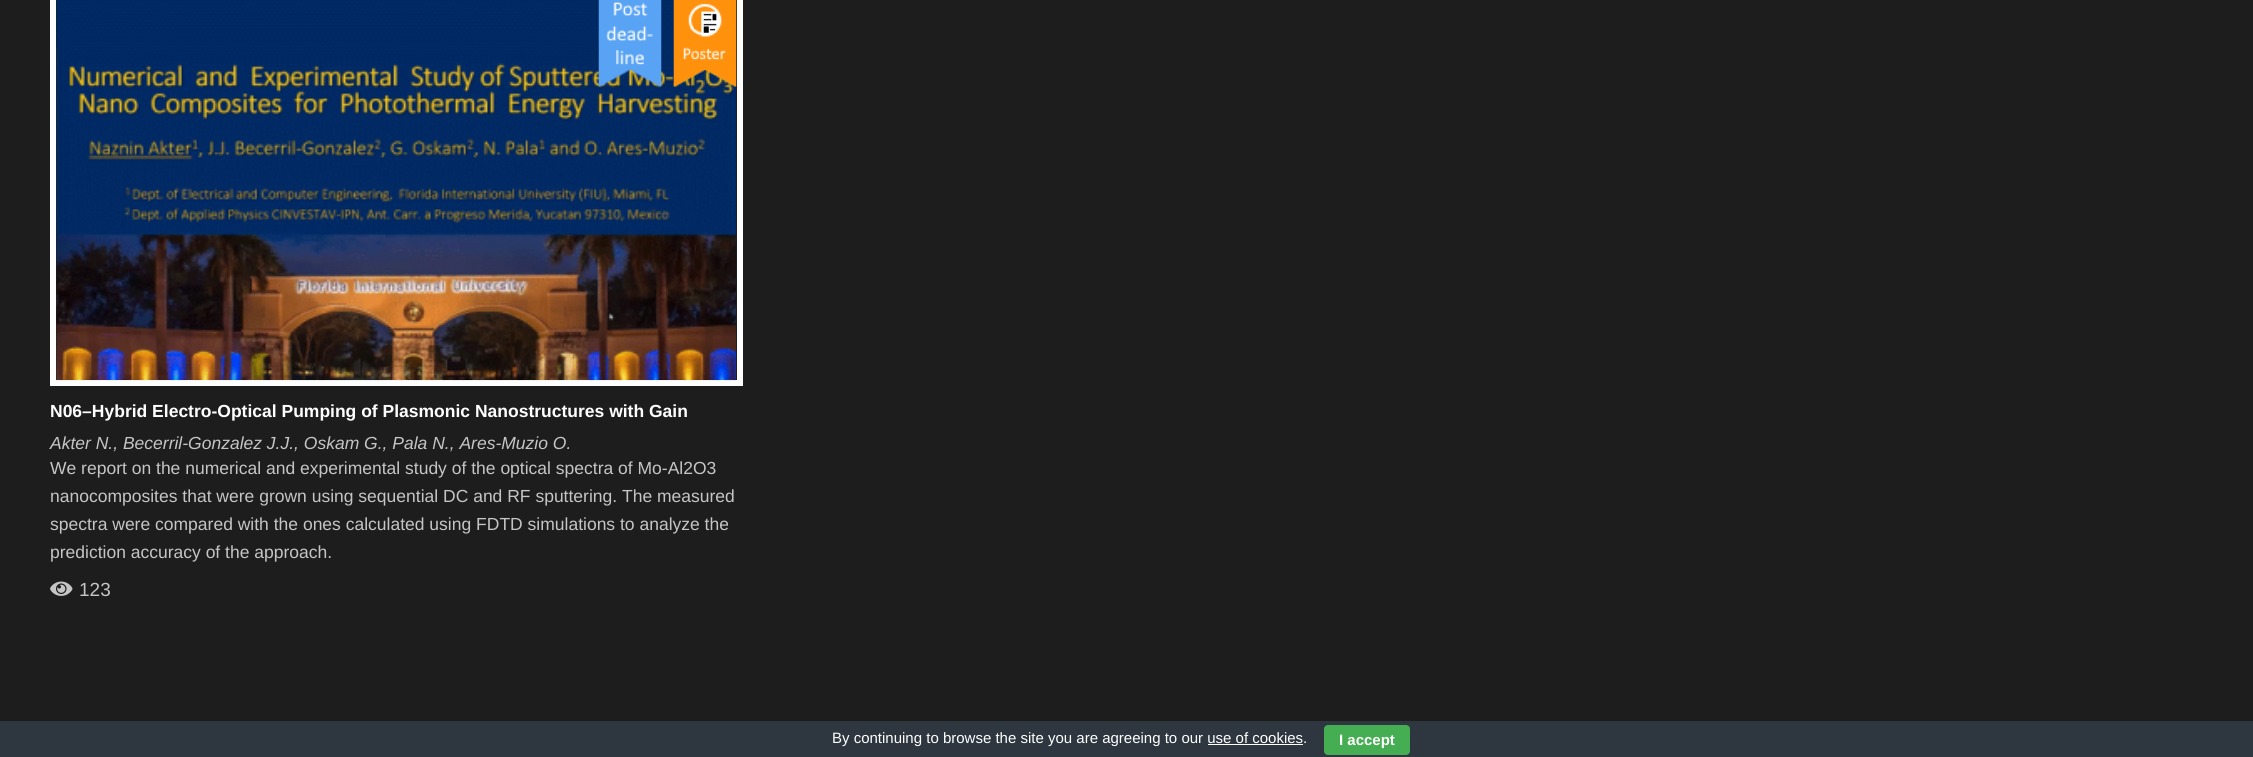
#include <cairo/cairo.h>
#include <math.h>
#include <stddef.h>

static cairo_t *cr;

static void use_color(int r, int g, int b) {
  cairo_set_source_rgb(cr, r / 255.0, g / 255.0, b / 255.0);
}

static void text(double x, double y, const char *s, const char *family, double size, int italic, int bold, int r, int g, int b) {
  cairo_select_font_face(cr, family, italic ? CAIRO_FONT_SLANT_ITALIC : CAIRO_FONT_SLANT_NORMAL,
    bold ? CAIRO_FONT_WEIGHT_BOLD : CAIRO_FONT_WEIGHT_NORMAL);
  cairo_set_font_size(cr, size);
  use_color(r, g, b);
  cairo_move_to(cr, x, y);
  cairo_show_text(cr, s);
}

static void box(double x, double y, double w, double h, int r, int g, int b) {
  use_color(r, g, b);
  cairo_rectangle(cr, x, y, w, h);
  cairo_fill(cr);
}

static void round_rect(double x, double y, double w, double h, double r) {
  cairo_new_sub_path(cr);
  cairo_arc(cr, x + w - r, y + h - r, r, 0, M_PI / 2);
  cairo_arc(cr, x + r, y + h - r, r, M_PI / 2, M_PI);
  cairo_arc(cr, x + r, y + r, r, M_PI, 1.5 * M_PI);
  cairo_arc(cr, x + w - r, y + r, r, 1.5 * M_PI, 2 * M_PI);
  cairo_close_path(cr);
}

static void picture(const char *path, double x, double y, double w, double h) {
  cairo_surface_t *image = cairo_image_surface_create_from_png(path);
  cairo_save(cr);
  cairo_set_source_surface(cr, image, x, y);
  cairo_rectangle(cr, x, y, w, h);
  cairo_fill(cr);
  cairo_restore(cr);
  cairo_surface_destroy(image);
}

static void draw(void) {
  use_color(29, 29, 29);
  cairo_paint(cr);
  cairo_rectangle(cr, 53, -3, 687, 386);
  use_color(255, 255, 255);
  cairo_set_line_width(cr, 6);
  cairo_stroke(cr);
  picture("img_01.png", 56, 0, 681, 381);
  picture("img_02.png", 598, 0, 64, 87);
  picture("img_03.png", 673, 0, 64, 87);
  picture("img_04.png", 50, 581, 23, 15);
  box(0, 721, 2253, 36, 46, 54, 63);
  use_color(69, 174, 82);
  round_rect(1324, 725, 86, 30, 4);
  cairo_fill(cr);
  box(1208, 744, 95, 1, 255, 255, 255);
  text(50, 417, "N06–Hybrid Electro-Optical Pumping of Plasmonic Nanostructures with Gain", "Liberation Sans", 17.5, 0, 1, 255, 255, 255);
  text(50, 449, "Akter N., Becerril-Gonzalez J.J., Oskam G., Pala N., Ares-Muzio O.", "Liberation Sans", 17.5, 1, 0, 197, 197, 197);
  text(50, 474, "We report on the numerical and experimental study of the optical spectra of Mo-Al2O3", "Liberation Sans", 17.5, 0, 0, 197, 197, 197);
  text(50, 502, "nanocomposites that were grown using sequential DC and RF sputtering. The measured", "Liberation Sans", 17.5, 0, 0, 197, 197, 197);
  text(50, 530, "spectra were compared with the ones calculated using FDTD simulations to analyze the", "Liberation Sans", 17.5, 0, 0, 197, 197, 197);
  text(50, 558, "prediction accuracy of the approach.", "Liberation Sans", 17.5, 0, 0, 197, 197, 197);
  text(79, 596, "123", "Liberation Sans", 19, 0, 0, 197, 197, 197);
  text(832, 743, "By continuing to browse the site you are agreeing to our use of cookies.", "Liberation Sans", 15, 0, 0, 255, 255, 255);
  text(1339, 745, "I accept", "Liberation Sans", 15, 0, 1, 255, 255, 255);
}

int main(void) {
  cairo_surface_t *surface = cairo_image_surface_create(CAIRO_FORMAT_RGB24, 2253, 757);
  cr = cairo_create(surface);
  cairo_font_options_t *options = cairo_font_options_create();
  cairo_font_options_set_hint_metrics(options, CAIRO_HINT_METRICS_OFF);
  cairo_font_options_set_hint_style(options, CAIRO_HINT_STYLE_NONE);
  cairo_set_font_options(cr, options);
  cairo_set_miter_limit(cr, 4);
  draw();
  cairo_surface_write_to_png(surface, "out.png");
  cairo_font_options_destroy(options);
  cairo_destroy(cr);
  cairo_surface_destroy(surface);
  return 0;
}
